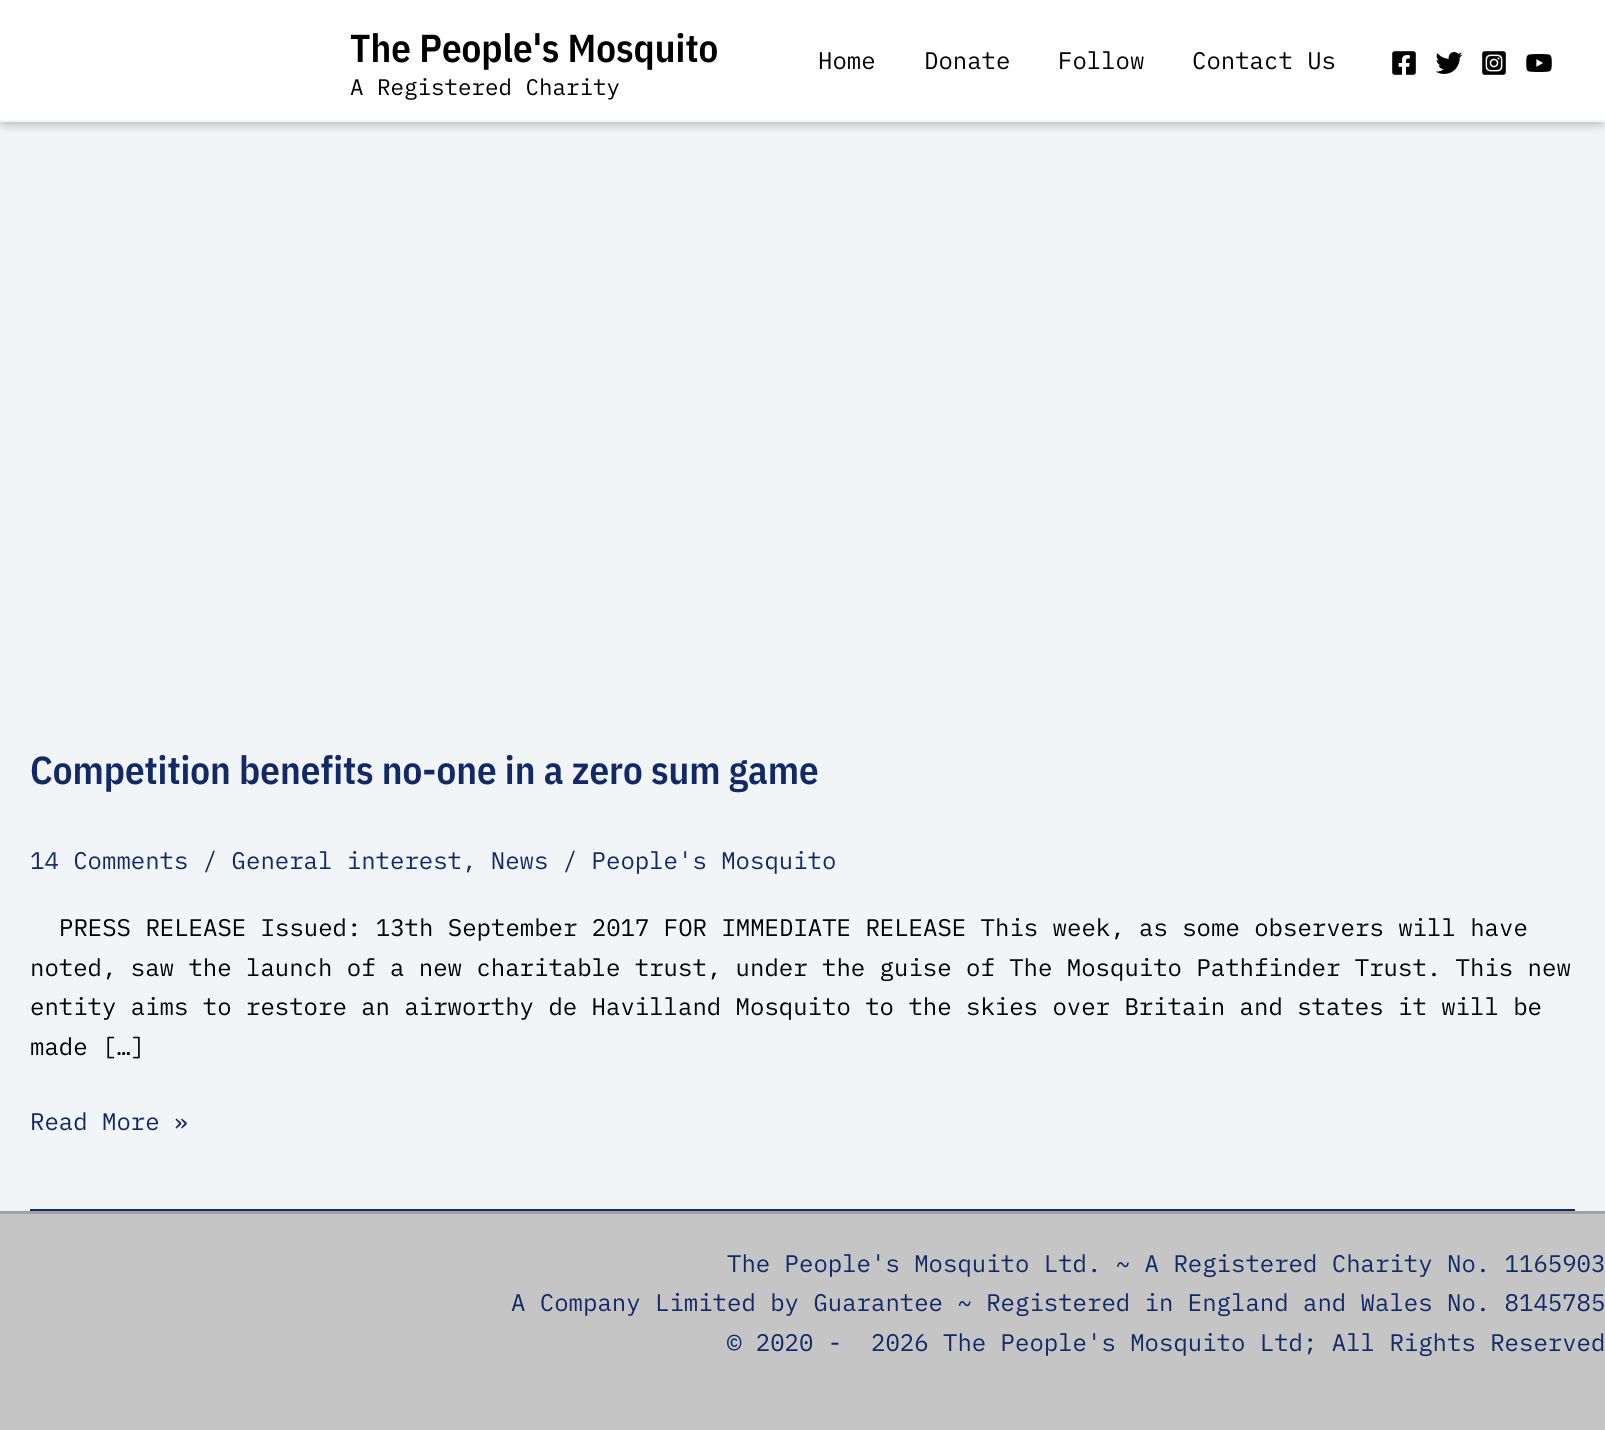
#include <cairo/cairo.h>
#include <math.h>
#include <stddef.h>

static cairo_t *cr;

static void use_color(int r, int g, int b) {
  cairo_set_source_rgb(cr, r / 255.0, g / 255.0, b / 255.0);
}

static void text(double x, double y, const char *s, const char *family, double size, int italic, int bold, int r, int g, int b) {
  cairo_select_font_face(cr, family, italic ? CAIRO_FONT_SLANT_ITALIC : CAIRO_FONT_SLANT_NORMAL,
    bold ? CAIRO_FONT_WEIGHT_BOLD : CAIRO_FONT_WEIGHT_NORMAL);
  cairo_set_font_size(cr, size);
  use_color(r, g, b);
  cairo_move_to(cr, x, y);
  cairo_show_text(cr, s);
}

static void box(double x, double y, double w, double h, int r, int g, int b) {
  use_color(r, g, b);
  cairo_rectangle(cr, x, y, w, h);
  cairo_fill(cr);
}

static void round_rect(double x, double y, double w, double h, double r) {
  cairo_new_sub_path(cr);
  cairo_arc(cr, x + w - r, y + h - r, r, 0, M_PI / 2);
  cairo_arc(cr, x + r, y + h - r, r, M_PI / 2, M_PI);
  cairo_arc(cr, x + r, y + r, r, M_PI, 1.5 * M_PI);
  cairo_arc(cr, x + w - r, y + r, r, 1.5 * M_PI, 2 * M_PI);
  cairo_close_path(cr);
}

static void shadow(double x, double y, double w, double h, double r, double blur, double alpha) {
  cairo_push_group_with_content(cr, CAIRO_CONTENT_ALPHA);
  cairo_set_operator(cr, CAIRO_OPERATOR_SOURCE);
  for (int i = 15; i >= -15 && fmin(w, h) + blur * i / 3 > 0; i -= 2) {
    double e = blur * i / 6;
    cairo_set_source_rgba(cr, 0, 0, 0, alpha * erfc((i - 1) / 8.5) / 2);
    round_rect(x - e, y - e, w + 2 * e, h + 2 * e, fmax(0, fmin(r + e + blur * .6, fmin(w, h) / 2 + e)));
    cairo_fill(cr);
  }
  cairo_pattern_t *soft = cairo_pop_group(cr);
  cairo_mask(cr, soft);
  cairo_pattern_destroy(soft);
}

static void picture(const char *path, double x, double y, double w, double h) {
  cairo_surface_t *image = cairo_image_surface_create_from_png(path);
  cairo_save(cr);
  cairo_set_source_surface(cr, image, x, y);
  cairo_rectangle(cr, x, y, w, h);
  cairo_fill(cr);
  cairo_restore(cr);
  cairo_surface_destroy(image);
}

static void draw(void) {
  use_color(197, 197, 197);
  cairo_paint(cr);
  box(0, 122, 1605, 1089, 242, 245, 247);
  use_color(0, 0, 0);
  shadow(3, 9, 1599, 116, 0, 4, 0.1);
  shadow(0, 2, 1605, 121, 0, 7.5, 0.12);
  shadow(9, 11, 1587, 103, 0, 7.5, 0.42);
  box(0, 0, 1605, 120, 255, 255, 255);
  box(0, 120, 1605, 2, 242, 245, 247);
  picture("img_01.png", 1392, 51, 24, 24);
  picture("img_02.png", 1436, 52, 27, 22);
  picture("img_03.png", 1482, 51, 24, 24);
  picture("img_04.png", 1526, 54, 26, 18);
  box(30, 1209, 1545, 2, 18, 41, 102);
  box(0, 1211, 1605, 3, 162, 162, 162);
  text(350, 62, "The People's Mosquito", "IBM Plex Sans Condensed SemiBold", 39, 0, 0, 0, 0, 0);
  text(350, 95, "A Registered Charity", "IBM Plex Mono", 22.5, 0, 0, 0, 0, 0);
  text(818, 69, "Home", "IBM Plex Mono", 24, 0, 0, 0, 0, 0);
  text(924, 69, "Donate", "IBM Plex Mono", 24, 0, 0, 0, 0, 0);
  text(1058, 69, "Follow", "IBM Plex Mono", 24, 0, 0, 0, 0, 0);
  text(1192, 69, "Contact Us", "IBM Plex Mono", 24, 0, 0, 0, 0, 0);
  text(30, 784, "Competition benefits no-one in a zero sum game", "IBM Plex Sans Condensed SemiBold", 39, 0, 0, 18, 41, 102);
  text(30, 869, "14 Comments / General interest, News / People's Mosquito", "IBM Plex Mono", 24, 0, 0, 18, 41, 102);
  text(59, 936, "PRESS RELEASE Issued: 13th September 2017 FOR IMMEDIATE RELEASE This week, as some observers will have", "IBM Plex Mono", 24, 0, 0, 0, 0, 0);
  text(30, 976, "noted, saw the launch of a new charitable trust, under the guise of The Mosquito Pathfinder Trust. This new", "IBM Plex Mono", 24, 0, 0, 0, 0, 0);
  text(30, 1015, "entity aims to restore an airworthy de Havilland Mosquito to the skies over Britain and states it will be", "IBM Plex Mono", 24, 0, 0, 0, 0, 0);
  text(30, 1055, "made […]", "IBM Plex Mono", 24, 0, 0, 0, 0, 0);
  text(30, 1130, "Read More »", "IBM Plex Mono", 24, 0, 0, 18, 41, 102);
  text(727, 1272, "The People's Mosquito Ltd. ~ A Registered Charity No. 1165903", "IBM Plex Mono", 24, 0, 0, 18, 41, 102);
  text(511, 1311, "A Company Limited by Guarantee ~ Registered in England and Wales No. 8145785", "IBM Plex Mono", 24, 0, 0, 18, 41, 102);
  text(727, 1351, "© 2020 -  2026 The People's Mosquito Ltd; All Rights Reserved", "IBM Plex Mono", 24, 0, 0, 18, 41, 102);
}

int main(void) {
  cairo_surface_t *surface = cairo_image_surface_create(CAIRO_FORMAT_RGB24, 1605, 1430);
  cr = cairo_create(surface);
  cairo_font_options_t *options = cairo_font_options_create();
  cairo_font_options_set_hint_metrics(options, CAIRO_HINT_METRICS_OFF);
  cairo_font_options_set_hint_style(options, CAIRO_HINT_STYLE_NONE);
  cairo_set_font_options(cr, options);
  cairo_set_miter_limit(cr, 4);
  draw();
  cairo_surface_write_to_png(surface, "out.png");
  cairo_font_options_destroy(options);
  cairo_destroy(cr);
  cairo_surface_destroy(surface);
  return 0;
}
